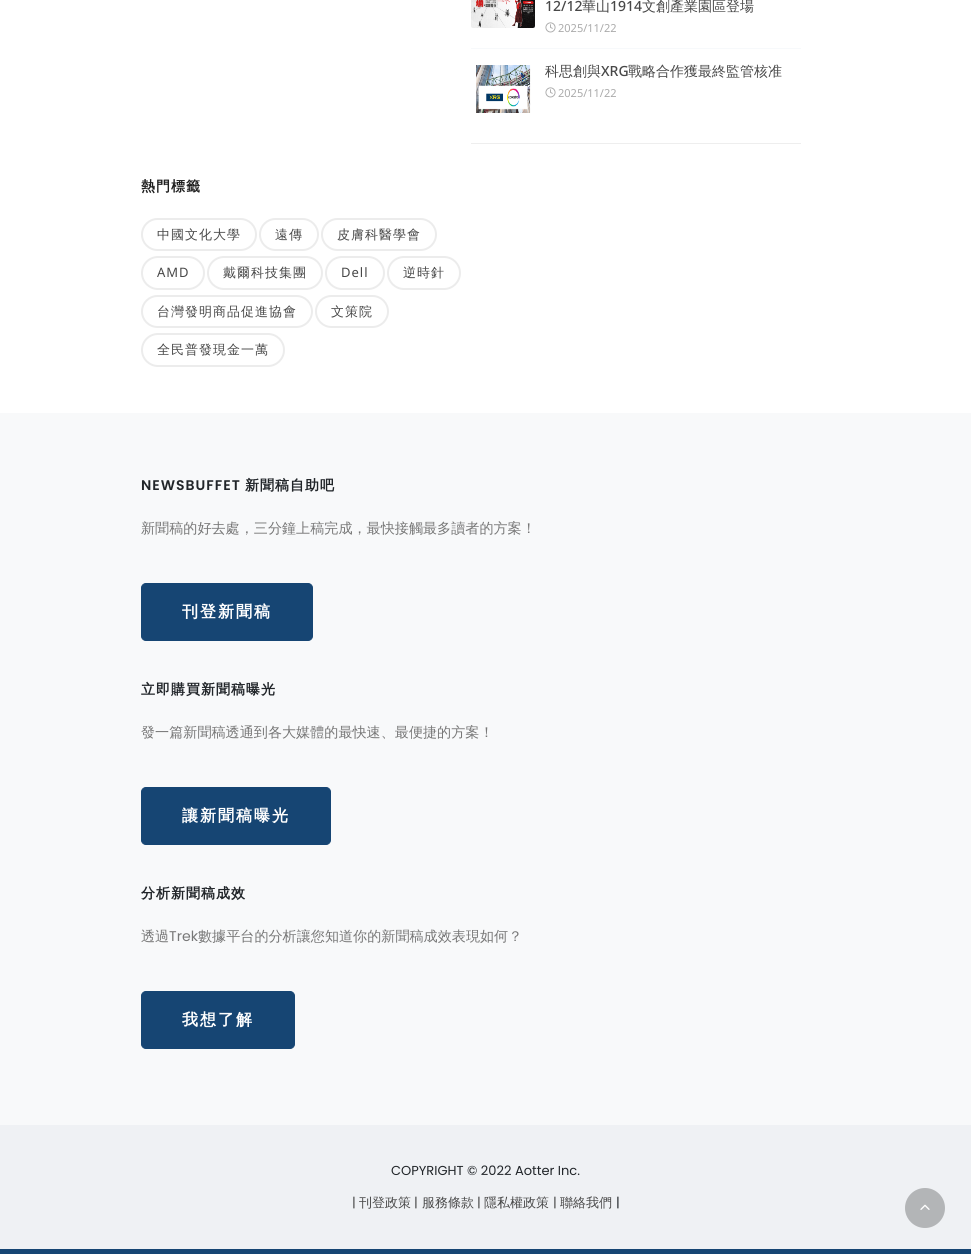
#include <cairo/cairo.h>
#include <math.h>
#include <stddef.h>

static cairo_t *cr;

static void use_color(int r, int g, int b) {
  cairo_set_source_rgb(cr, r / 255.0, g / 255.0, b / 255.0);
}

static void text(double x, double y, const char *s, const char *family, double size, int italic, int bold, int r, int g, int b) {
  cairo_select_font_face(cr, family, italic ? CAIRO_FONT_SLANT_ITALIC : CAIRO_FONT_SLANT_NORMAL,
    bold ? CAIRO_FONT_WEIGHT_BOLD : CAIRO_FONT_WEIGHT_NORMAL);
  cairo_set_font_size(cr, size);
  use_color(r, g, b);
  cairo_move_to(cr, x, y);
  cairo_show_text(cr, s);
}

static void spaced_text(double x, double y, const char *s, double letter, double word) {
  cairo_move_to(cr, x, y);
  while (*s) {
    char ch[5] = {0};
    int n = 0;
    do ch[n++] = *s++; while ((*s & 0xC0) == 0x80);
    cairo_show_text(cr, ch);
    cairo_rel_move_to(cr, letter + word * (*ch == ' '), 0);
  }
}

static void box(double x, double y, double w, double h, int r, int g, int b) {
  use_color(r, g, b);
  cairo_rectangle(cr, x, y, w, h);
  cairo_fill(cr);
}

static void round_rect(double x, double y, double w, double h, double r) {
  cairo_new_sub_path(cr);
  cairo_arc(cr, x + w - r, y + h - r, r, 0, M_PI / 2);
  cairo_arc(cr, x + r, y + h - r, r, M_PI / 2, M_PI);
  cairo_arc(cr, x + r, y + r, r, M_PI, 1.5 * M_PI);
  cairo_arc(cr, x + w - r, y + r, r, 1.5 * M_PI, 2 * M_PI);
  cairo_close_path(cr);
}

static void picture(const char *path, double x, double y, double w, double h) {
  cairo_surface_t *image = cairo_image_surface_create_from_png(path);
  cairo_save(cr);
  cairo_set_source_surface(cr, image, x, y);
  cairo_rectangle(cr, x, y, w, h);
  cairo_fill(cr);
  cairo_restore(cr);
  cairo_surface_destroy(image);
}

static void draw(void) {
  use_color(255, 255, 255);
  cairo_paint(cr);
  box(471, 143, 330, 1, 238, 238, 238);
  box(471, 48, 330, 1, 247, 249, 251);
  picture("img_01.png", 471, 0, 64, 28);
  picture("img_02.png", 545, 22, 11, 11);
  picture("img_03.png", 476, 65, 55, 48);
  picture("img_02.png", 545, 87, 11, 11);
  round_rect(142, 219, 114, 31, 15.5);
  use_color(236, 236, 236);
  cairo_stroke(cr);
  round_rect(260, 219, 58, 31, 15.5);
  cairo_stroke(cr);
  round_rect(322, 219, 114, 31, 15.5);
  cairo_stroke(cr);
  round_rect(142, 257, 62, 32, 16);
  cairo_stroke(cr);
  round_rect(208, 257, 114, 32, 16);
  cairo_stroke(cr);
  round_rect(326, 257, 58, 32, 16);
  cairo_stroke(cr);
  round_rect(388, 257, 72, 32, 16);
  cairo_stroke(cr);
  round_rect(142, 296, 170, 31, 15.5);
  cairo_stroke(cr);
  round_rect(316, 296, 72, 31, 15.5);
  cairo_stroke(cr);
  round_rect(142, 334, 142, 32, 16);
  cairo_stroke(cr);
  box(0, 413, 971, 712, 248, 249, 250);
  use_color(22, 69, 115);
  round_rect(141.5, 583.5, 171, 57, 4.5);
  cairo_fill_preserve(cr);
  cairo_set_line_width(cr, 1);
  cairo_stroke(cr);
  round_rect(141.5, 787.5, 189, 57, 4.5);
  cairo_fill_preserve(cr);
  cairo_stroke(cr);
  round_rect(141.5, 991.5, 153, 57, 4.5);
  cairo_fill_preserve(cr);
  cairo_stroke(cr);
  box(0, 1125, 971, 124, 239, 241, 244);
  box(0, 1249, 971, 5, 22, 69, 115);
  use_color(179, 181, 183);
  cairo_arc(cr, 925, 1208, 20, 0, 2 * M_PI);
  cairo_fill(cr);
  picture("img_04.png", 920, 1204, 10, 6);
  text(545, 11, "12/12", "Noto Sans Medium", 14, 0, 0, 72, 72, 72);
  text(582, 11, "華山", "WenQuanYi Zen Hei Medium", 14, 0, 0, 72, 72, 72);
  text(610, 11, "1914", "Noto Sans Medium", 14, 0, 0, 72, 72, 72);
  text(642, 11, "文創產業園區登場", "WenQuanYi Zen Hei Medium", 14, 0, 0, 72, 72, 72);
  text(558, 32, "2025/11/22", "Noto Sans", 11, 0, 0, 170, 170, 170);
  text(545, 76, "科思創與", "WenQuanYi Zen Hei Medium", 14, 0, 0, 72, 72, 72);
  text(601, 76, "XRG", "Noto Sans Medium", 14, 0, 0, 72, 72, 72);
  text(628, 76, "戰略合作獲最終監管核准", "WenQuanYi Zen Hei Medium", 14, 0, 0, 72, 72, 72);
  text(558, 97, "2025/11/22", "Noto Sans", 11, 0, 0, 170, 170, 170);
  cairo_select_font_face(cr, "WenQuanYi Zen Hei", CAIRO_FONT_SLANT_NORMAL, CAIRO_FONT_WEIGHT_BOLD);
  cairo_set_font_size(cr, 14);
  use_color(31, 31, 31);
  spaced_text(141, 191, "熱門標籤", 1, 0);
  cairo_select_font_face(cr, "WenQuanYi Zen Hei Medium", CAIRO_FONT_SLANT_NORMAL, CAIRO_FONT_WEIGHT_NORMAL);
  cairo_set_font_size(cr, 13);
  use_color(72, 72, 72);
  spaced_text(157, 239, "中國文化大學", 1, 0);
  spaced_text(275, 239, "遠傳", 1, 0);
  spaced_text(337, 239, "皮膚科醫學會", 1, 0);
  cairo_select_font_face(cr, "Noto Sans", CAIRO_FONT_SLANT_NORMAL, CAIRO_FONT_WEIGHT_NORMAL);
  spaced_text(157, 277, "AMD", 1, 0);
  cairo_select_font_face(cr, "WenQuanYi Zen Hei Medium", CAIRO_FONT_SLANT_NORMAL, CAIRO_FONT_WEIGHT_NORMAL);
  spaced_text(223, 277, "戴爾科技集團", 1, 0);
  cairo_select_font_face(cr, "Noto Sans", CAIRO_FONT_SLANT_NORMAL, CAIRO_FONT_WEIGHT_NORMAL);
  spaced_text(341, 277, "Dell", 1, 0);
  cairo_select_font_face(cr, "WenQuanYi Zen Hei Medium", CAIRO_FONT_SLANT_NORMAL, CAIRO_FONT_WEIGHT_NORMAL);
  spaced_text(403, 277, "逆時針", 1, 0);
  spaced_text(157, 316, "台灣發明商品促進協會", 1, 0);
  spaced_text(331, 316, "文策院", 1, 0);
  spaced_text(157, 354, "全民普發現金一萬", 1, 0);
  cairo_select_font_face(cr, "Poppins SemiBold", CAIRO_FONT_SLANT_NORMAL, CAIRO_FONT_WEIGHT_NORMAL);
  cairo_set_font_size(cr, 14);
  use_color(33, 37, 41);
  spaced_text(141, 490, "NEWSBUFFET", 1, 0);
  cairo_select_font_face(cr, "WenQuanYi Zen Hei", CAIRO_FONT_SLANT_NORMAL, CAIRO_FONT_WEIGHT_BOLD);
  spaced_text(245, 490, "新聞稿自助吧", 1, 0);
  text(141, 533, "新聞稿的好去處，三分鐘上稿完成，最快接觸最多讀者的方案！", "WenQuanYi Zen Hei Medium", 14.1, 0, 0, 119, 119, 119);
  cairo_select_font_face(cr, "WenQuanYi Zen Hei", CAIRO_FONT_SLANT_NORMAL, CAIRO_FONT_WEIGHT_BOLD);
  cairo_set_font_size(cr, 16);
  use_color(255, 255, 255);
  spaced_text(182, 617, "刊登新聞稿", 2, 0);
  cairo_set_font_size(cr, 14);
  use_color(33, 37, 41);
  spaced_text(141, 694, "立即購買新聞稿曝光", 1, 0);
  text(141, 737, "發一篇新聞稿透通到各大媒體的最快速、最便捷的方案！", "WenQuanYi Zen Hei Medium", 14.1, 0, 0, 119, 119, 119);
  cairo_select_font_face(cr, "WenQuanYi Zen Hei", CAIRO_FONT_SLANT_NORMAL, CAIRO_FONT_WEIGHT_BOLD);
  cairo_set_font_size(cr, 16);
  use_color(255, 255, 255);
  spaced_text(182, 821, "讓新聞稿曝光", 2, 0);
  cairo_set_font_size(cr, 14);
  use_color(33, 37, 41);
  spaced_text(141, 898, "分析新聞稿成效", 1, 0);
  text(141, 941, "透過", "WenQuanYi Zen Hei Medium", 14.1, 0, 0, 119, 119, 119);
  text(169, 941, "Trek", "Poppins", 14.1, 0, 0, 119, 119, 119);
  text(198, 941, "數據平台的分析讓您知道你的新聞稿成效表現如何？", "WenQuanYi Zen Hei Medium", 14.1, 0, 0, 119, 119, 119);
  cairo_select_font_face(cr, "WenQuanYi Zen Hei", CAIRO_FONT_SLANT_NORMAL, CAIRO_FONT_WEIGHT_BOLD);
  cairo_set_font_size(cr, 16);
  use_color(255, 255, 255);
  spaced_text(182, 1025, "我想了解", 2, 0);
  text(391, 1175, "COPYRIGHT © 2022 Aotter Inc.", "Poppins", 13, 0, 0, 33, 37, 41);
  text(352, 1207, "|", "Poppins", 13, 0, 0, 72, 72, 72);
  text(359, 1207, "刊登政策", "WenQuanYi Zen Hei Medium", 13, 0, 0, 72, 72, 72);
  text(414, 1207, "|", "Poppins", 13, 0, 0, 72, 72, 72);
  text(422, 1207, "服務條款", "WenQuanYi Zen Hei Medium", 13, 0, 0, 72, 72, 72);
  text(477, 1207, "|", "Poppins", 13, 0, 0, 72, 72, 72);
  text(484, 1207, "隱私權政策", "WenQuanYi Zen Hei Medium", 13, 0, 0, 72, 72, 72);
  text(553, 1207, "|", "Poppins", 13, 0, 0, 72, 72, 72);
  text(560, 1207, "聯絡我們", "WenQuanYi Zen Hei Medium", 13, 0, 0, 72, 72, 72);
  text(616, 1207, "|", "Poppins", 13, 0, 0, 33, 37, 41);
}

int main(void) {
  cairo_surface_t *surface = cairo_image_surface_create(CAIRO_FORMAT_RGB24, 971, 1254);
  cr = cairo_create(surface);
  cairo_font_options_t *options = cairo_font_options_create();
  cairo_font_options_set_hint_metrics(options, CAIRO_HINT_METRICS_OFF);
  cairo_font_options_set_hint_style(options, CAIRO_HINT_STYLE_NONE);
  cairo_set_font_options(cr, options);
  cairo_set_miter_limit(cr, 4);
  draw();
  cairo_surface_write_to_png(surface, "out.png");
  cairo_font_options_destroy(options);
  cairo_destroy(cr);
  cairo_surface_destroy(surface);
  return 0;
}
